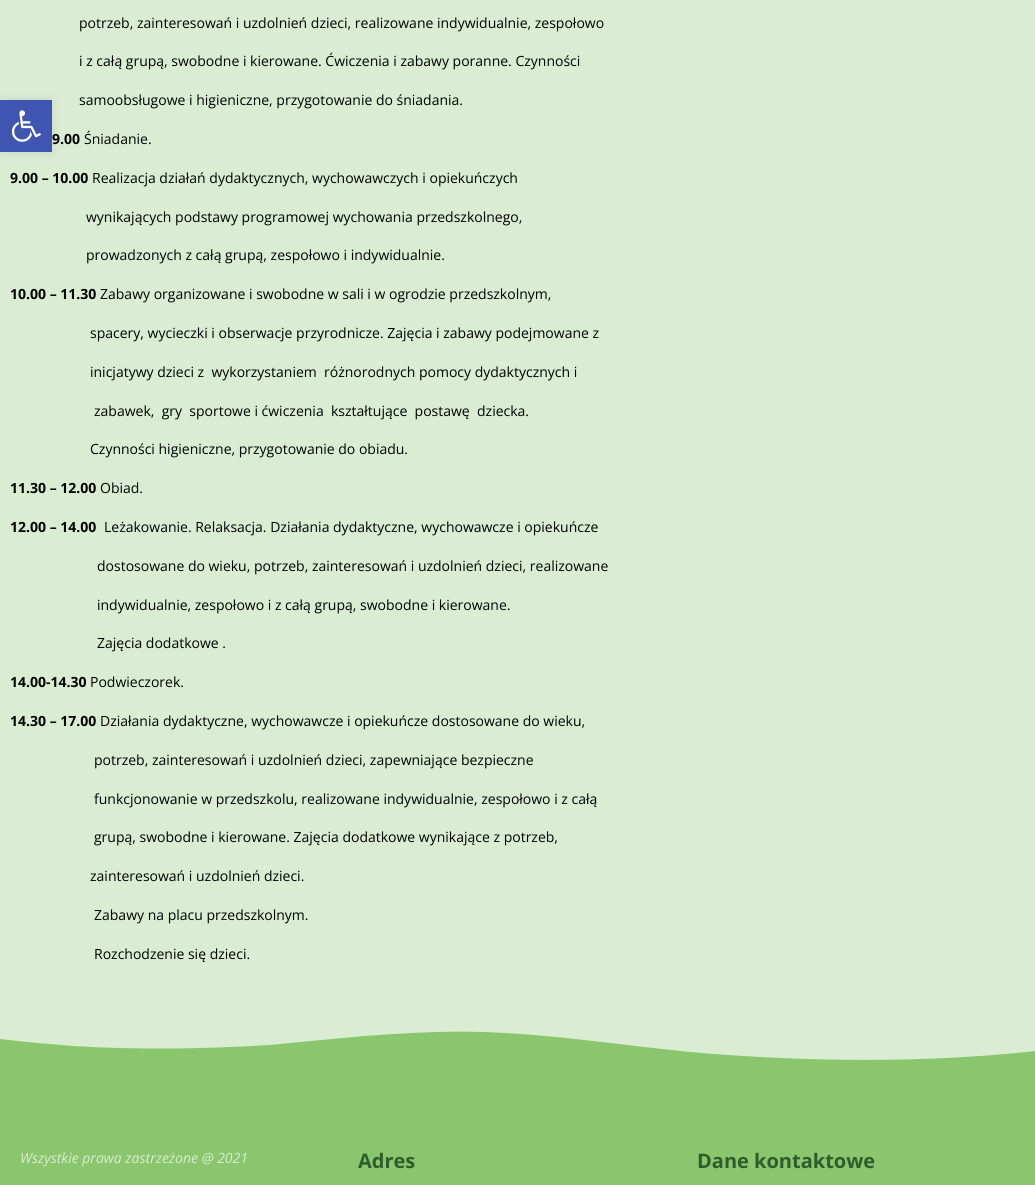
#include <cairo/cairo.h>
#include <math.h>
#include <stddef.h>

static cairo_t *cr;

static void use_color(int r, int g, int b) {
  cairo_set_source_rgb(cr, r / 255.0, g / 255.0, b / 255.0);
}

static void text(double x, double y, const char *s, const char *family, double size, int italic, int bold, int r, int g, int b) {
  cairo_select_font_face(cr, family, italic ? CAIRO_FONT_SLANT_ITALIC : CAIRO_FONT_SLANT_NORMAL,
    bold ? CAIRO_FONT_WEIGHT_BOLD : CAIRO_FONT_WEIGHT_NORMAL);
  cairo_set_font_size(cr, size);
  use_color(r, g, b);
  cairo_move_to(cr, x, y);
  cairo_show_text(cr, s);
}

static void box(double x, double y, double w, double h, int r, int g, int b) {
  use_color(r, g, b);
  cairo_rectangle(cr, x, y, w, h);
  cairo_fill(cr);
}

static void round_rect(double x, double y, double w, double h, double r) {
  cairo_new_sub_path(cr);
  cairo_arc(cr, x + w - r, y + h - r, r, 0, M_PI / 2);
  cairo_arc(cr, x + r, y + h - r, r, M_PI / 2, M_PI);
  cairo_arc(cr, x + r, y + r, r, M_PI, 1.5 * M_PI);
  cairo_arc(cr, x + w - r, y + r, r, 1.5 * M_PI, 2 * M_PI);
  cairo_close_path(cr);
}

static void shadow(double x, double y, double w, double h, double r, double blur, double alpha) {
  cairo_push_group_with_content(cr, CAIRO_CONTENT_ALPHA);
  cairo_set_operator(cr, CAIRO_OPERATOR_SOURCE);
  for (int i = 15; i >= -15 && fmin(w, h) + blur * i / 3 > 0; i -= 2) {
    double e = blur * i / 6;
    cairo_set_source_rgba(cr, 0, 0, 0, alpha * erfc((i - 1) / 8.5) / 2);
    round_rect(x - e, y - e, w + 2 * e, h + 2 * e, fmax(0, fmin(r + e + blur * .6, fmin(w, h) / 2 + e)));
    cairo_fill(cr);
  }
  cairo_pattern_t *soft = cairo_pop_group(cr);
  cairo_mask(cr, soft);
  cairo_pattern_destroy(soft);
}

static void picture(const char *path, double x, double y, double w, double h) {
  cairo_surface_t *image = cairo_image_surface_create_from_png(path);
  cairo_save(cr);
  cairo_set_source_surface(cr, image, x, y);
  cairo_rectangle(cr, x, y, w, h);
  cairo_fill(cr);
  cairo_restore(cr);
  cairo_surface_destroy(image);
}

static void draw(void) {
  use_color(218, 237, 210);
  cairo_paint(cr);
  box(0, 1031, 1035, 154, 138, 198, 110);
  use_color(218, 237, 210);
  cairo_new_path(cr);
  cairo_move_to(cr, 437, 1032);
  cairo_curve_to(cr, 526, 1029, 613, 1045, 701, 1053);
  cairo_curve_to(cr, 812, 1062, 926, 1063, 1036, 1051);
  cairo_line_to(cr, 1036, 1030);
  cairo_line_to(cr, 0, 1030);
  cairo_line_to(cr, 0, 1039);
  cairo_curve_to(cr, 24, 1042, 48, 1044, 73, 1046);
  cairo_curve_to(cr, 138, 1050, 204, 1049, 269, 1045);
  cairo_line_to(cr, 342, 1038);
  cairo_curve_to(cr, 373, 1035, 405, 1033, 437, 1032);
  cairo_close_path(cr);
  cairo_fill(cr);
  use_color(0, 0, 0);
  shadow(0, 100, 52, 52, 0, 5, 0.1);
  box(0, 100, 52, 52, 64, 84, 178);
  picture("img_01.png", 11, 110, 30, 32);
  text(79, 28, "potrzeb, zainteresowań i uzdolnień dzieci, realizowane indywidualnie, zespołowo", "Open Sans", 14, 0, 0, 0, 0, 0);
  text(79, 66, "i z całą grupą, swobodne i kierowane. Ćwiczenia i zabawy poranne. Czynności", "Open Sans", 14, 0, 0, 0, 0, 0);
  text(79, 105, "samoobsługowe i higieniczne, przygotowanie do śniadania.", "Open Sans", 14, 0, 0, 0, 0, 0);
  text(52, 144, "9.00", "Open Sans", 14, 0, 1, 0, 0, 0);
  text(84, 144, "Śniadanie.", "Open Sans", 14, 0, 0, 0, 0, 0);
  text(10, 183, "9.00 – 10.00", "Open Sans", 14, 0, 1, 0, 0, 0);
  text(92, 183, "Realizacja działań dydaktycznych, wychowawczych i opiekuńczych", "Open Sans", 14, 0, 0, 0, 0, 0);
  text(86, 222, "wynikających podstawy programowej wychowania przedszkolnego,", "Open Sans", 14, 0, 0, 0, 0, 0);
  text(86, 260, "prowadzonych z całą grupą, zespołowo i indywidualnie.", "Open Sans", 14, 0, 0, 0, 0, 0);
  text(10, 299, "10.00 – 11.30", "Open Sans", 14, 0, 1, 0, 0, 0);
  text(100, 299, "Zabawy organizowane i swobodne w sali i w ogrodzie przedszkolnym,", "Open Sans", 14, 0, 0, 0, 0, 0);
  text(90, 338, "spacery, wycieczki i obserwacje przyrodnicze. Zajęcia i zabawy podejmowane z", "Open Sans", 14, 0, 0, 0, 0, 0);
  text(90, 377, "inicjatywy dzieci z  wykorzystaniem  różnorodnych pomocy dydaktycznych i", "Open Sans", 14, 0, 0, 0, 0, 0);
  text(94, 416, "zabawek,  gry  sportowe i ćwiczenia  kształtujące  postawę  dziecka.", "Open Sans", 14, 0, 0, 0, 0, 0);
  text(90, 454, "Czynności higieniczne, przygotowanie do obiadu.", "Open Sans", 14, 0, 0, 0, 0, 0);
  text(10, 493, "11.30 – 12.00", "Open Sans", 14, 0, 1, 0, 0, 0);
  text(100, 493, "Obiad.", "Open Sans", 14, 0, 0, 0, 0, 0);
  text(10, 532, "12.00 – 14.00", "Open Sans", 14, 0, 1, 0, 0, 0);
  text(104, 532, "Leżakowanie. Relaksacja. Działania dydaktyczne, wychowawcze i opiekuńcze", "Open Sans", 14, 0, 0, 0, 0, 0);
  text(97, 571, "dostosowane do wieku, potrzeb, zainteresowań i uzdolnień dzieci, realizowane", "Open Sans", 14, 0, 0, 0, 0, 0);
  text(97, 610, "indywidualnie, zespołowo i z całą grupą, swobodne i kierowane.", "Open Sans", 14, 0, 0, 0, 0, 0);
  text(97, 648, "Zajęcia dodatkowe .", "Open Sans", 14, 0, 0, 0, 0, 0);
  text(10, 687, "14.00-14.30", "Open Sans", 14, 0, 1, 0, 0, 0);
  text(90, 687, "Podwieczorek.", "Open Sans", 14, 0, 0, 0, 0, 0);
  text(10, 726, "14.30 – 17.00", "Open Sans", 14, 0, 1, 0, 0, 0);
  text(100, 726, "Działania dydaktyczne, wychowawcze i opiekuńcze dostosowane do wieku,", "Open Sans", 14, 0, 0, 0, 0, 0);
  text(94, 765, "potrzeb, zainteresowań i uzdolnień dzieci, zapewniające bezpieczne", "Open Sans", 14, 0, 0, 0, 0, 0);
  text(94, 804, "funkcjonowanie w przedszkolu, realizowane indywidualnie, zespołowo i z całą", "Open Sans", 14, 0, 0, 0, 0, 0);
  text(94, 842, "grupą, swobodne i kierowane. Zajęcia dodatkowe wynikające z potrzeb,", "Open Sans", 14, 0, 0, 0, 0, 0);
  text(90, 881, "zainteresowań i uzdolnień dzieci.", "Open Sans", 14, 0, 0, 0, 0, 0);
  text(94, 920, "Zabawy na placu przedszkolnym.", "Open Sans", 14, 0, 0, 0, 0, 0);
  text(94, 959, "Rozchodzenie się dzieci.", "Open Sans", 14, 0, 0, 0, 0, 0);
  text(20, 1163, "Wszystkie prawa zastrzeżone @ 2021", "Open Sans", 14, 1, 0, 218, 237, 210);
  text(358, 1168, "Adres", "Open Sans", 20, 0, 1, 47, 92, 44);
  text(697, 1168, "Dane kontaktowe", "Open Sans", 20, 0, 1, 47, 92, 44);
}

int main(void) {
  cairo_surface_t *surface = cairo_image_surface_create(CAIRO_FORMAT_RGB24, 1035, 1185);
  cr = cairo_create(surface);
  cairo_font_options_t *options = cairo_font_options_create();
  cairo_font_options_set_hint_metrics(options, CAIRO_HINT_METRICS_OFF);
  cairo_font_options_set_hint_style(options, CAIRO_HINT_STYLE_NONE);
  cairo_set_font_options(cr, options);
  cairo_set_miter_limit(cr, 4);
  draw();
  cairo_surface_write_to_png(surface, "out.png");
  cairo_font_options_destroy(options);
  cairo_destroy(cr);
  cairo_surface_destroy(surface);
  return 0;
}
